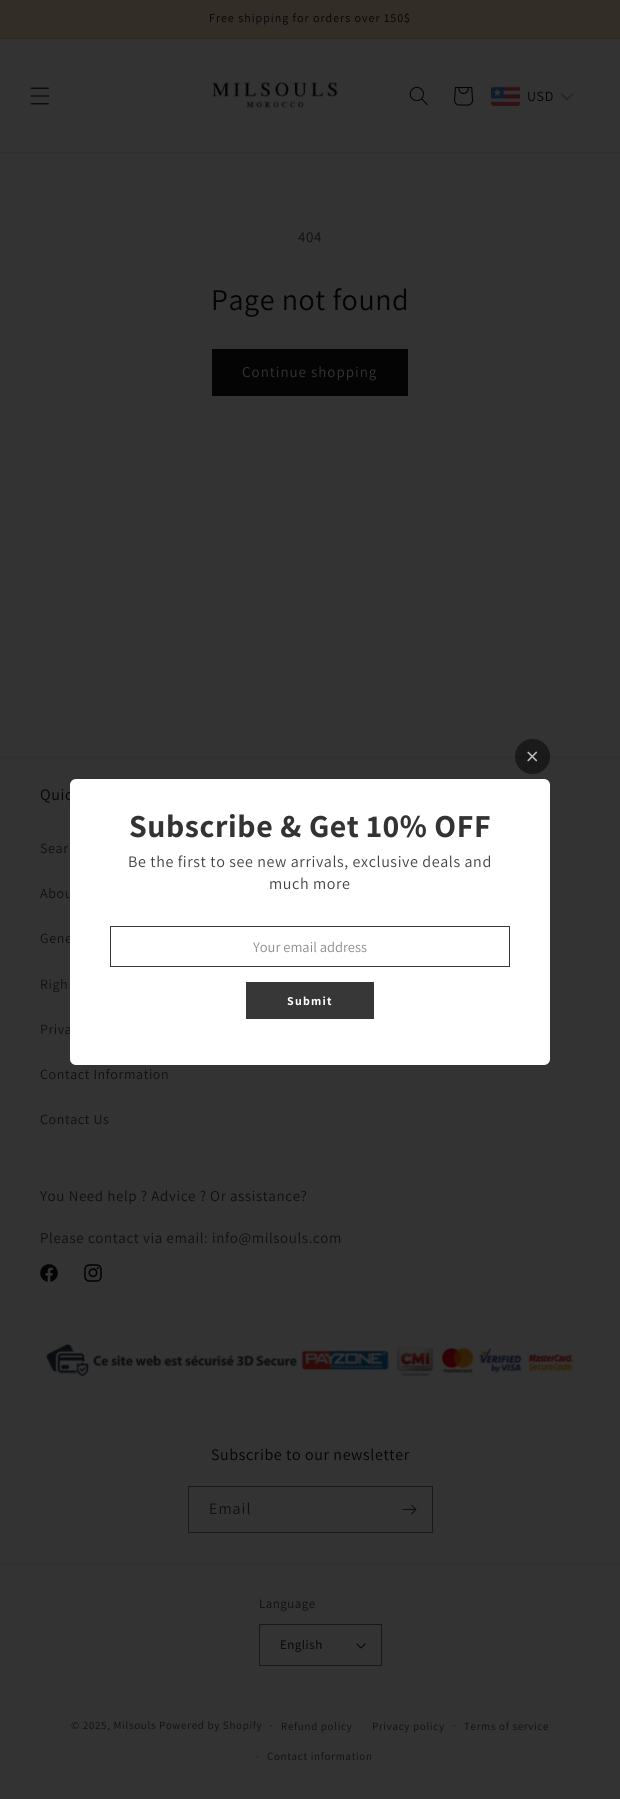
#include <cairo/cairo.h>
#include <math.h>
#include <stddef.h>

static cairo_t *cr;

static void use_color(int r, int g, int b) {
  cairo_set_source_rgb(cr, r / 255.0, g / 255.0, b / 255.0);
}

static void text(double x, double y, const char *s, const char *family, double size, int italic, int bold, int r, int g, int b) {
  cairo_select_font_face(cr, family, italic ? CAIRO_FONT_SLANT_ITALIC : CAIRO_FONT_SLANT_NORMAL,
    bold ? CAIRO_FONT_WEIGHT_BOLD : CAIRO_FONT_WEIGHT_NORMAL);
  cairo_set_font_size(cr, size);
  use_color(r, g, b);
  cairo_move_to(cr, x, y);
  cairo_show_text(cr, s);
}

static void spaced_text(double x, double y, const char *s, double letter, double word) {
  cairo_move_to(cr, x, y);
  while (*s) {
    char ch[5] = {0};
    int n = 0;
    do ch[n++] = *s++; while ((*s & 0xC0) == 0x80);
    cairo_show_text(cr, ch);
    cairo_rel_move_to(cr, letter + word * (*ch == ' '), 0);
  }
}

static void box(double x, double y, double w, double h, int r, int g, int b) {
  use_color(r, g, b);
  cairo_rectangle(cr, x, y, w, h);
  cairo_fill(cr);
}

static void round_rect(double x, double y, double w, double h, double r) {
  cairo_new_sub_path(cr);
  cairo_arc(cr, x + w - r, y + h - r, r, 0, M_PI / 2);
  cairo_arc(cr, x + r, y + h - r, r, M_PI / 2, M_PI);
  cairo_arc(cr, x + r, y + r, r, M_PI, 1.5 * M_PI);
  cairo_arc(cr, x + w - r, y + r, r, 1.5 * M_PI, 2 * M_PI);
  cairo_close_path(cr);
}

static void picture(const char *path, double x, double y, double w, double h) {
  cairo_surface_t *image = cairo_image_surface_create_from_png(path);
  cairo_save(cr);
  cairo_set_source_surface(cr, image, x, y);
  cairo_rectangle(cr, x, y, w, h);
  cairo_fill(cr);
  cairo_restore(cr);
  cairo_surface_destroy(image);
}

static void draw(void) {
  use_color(51, 51, 51);
  cairo_paint(cr);
  box(0, 0, 620, 38, 51, 45, 39);
  box(0, 38, 620, 1, 47, 41, 36);
  box(0, 152, 620, 1, 47, 47, 47);
  picture("img_01.png", 30, 87, 20, 18);
  picture("img_02.png", 212, 81, 126, 28);
  picture("img_03.png", 409, 86, 19, 20);
  picture("img_04.png", 454, 87, 20, 19);
  picture("img_05.png", 491, 86, 29, 20);
  cairo_new_path(cr);
  cairo_move_to(cr, 561.5, 94);
  cairo_line_to(cr, 567, 99.5);
  cairo_line_to(cr, 572.5, 94);
  use_color(37, 37, 37);
  cairo_set_line_width(cr, 1.8);
  cairo_set_line_cap(cr, CAIRO_LINE_CAP_ROUND);
  cairo_set_line_join(cr, CAIRO_LINE_JOIN_ROUND);
  cairo_stroke(cr);
  box(212, 349, 196, 47, 4, 4, 4);
  box(0, 757, 620, 1, 47, 47, 47);
  picture("img_06.png", 40, 1264, 18, 18);
  picture("img_07.png", 84, 1264, 18, 18);
  picture("img_08.png", 46, 1343, 529, 34);
  cairo_rectangle(cr, 188.5, 1486.5, 244, 46);
  use_color(25, 25, 25);
  cairo_set_line_width(cr, 1);
  cairo_set_line_cap(cr, CAIRO_LINE_CAP_BUTT);
  cairo_set_line_join(cr, CAIRO_LINE_JOIN_MITER);
  cairo_stroke(cr);
  picture("img_09.png", 402, 1504, 15, 11);
  box(0, 1563, 620, 1, 47, 47, 47);
  picture("img_10.png", 356, 1643, 10, 6);
  cairo_rectangle(cr, 259.5, 1624.5, 122, 41);
  use_color(25, 25, 25);
  cairo_stroke(cr);
  cairo_set_source_rgba(cr, 0, 0, 0, 0.49);
  cairo_arc(cr, 532.5, 756.5, 17.5, 0, 2 * M_PI);
  cairo_fill(cr);
  picture("img_11.png", 527, 751, 11, 11);
  cairo_select_font_face(cr, "Assistant", CAIRO_FONT_SLANT_NORMAL, CAIRO_FONT_WEIGHT_NORMAL);
  cairo_set_font_size(cr, 12);
  use_color(4, 4, 4);
  spaced_text(209, 22, "Free shipping for orders over 150$", 1, 0);
  cairo_set_font_size(cr, 14);
  spaced_text(527, 101, "USD", 0.6, 0);
  cairo_set_font_size(cr, 15);
  use_color(15, 15, 15);
  spaced_text(298, 242, "404", 0.6, 0);
  cairo_set_font_size(cr, 30);
  use_color(4, 4, 4);
  spaced_text(211, 310, "Page not found", 0.6, 0);
  cairo_set_font_size(cr, 15);
  use_color(51, 51, 51);
  spaced_text(242, 377, "Continue shopping", 1, 0);
  cairo_set_font_size(cr, 16);
  use_color(4, 4, 4);
  spaced_text(40, 800, "Quic", 0.6, 0);
  cairo_set_font_size(cr, 14);
  use_color(15, 15, 15);
  spaced_text(40, 853, "Sear", 0.6, 0);
  spaced_text(40, 898, "Abou", 0.6, 0);
  spaced_text(40, 943, "Gene", 0.6, 0);
  spaced_text(40, 989, "Righ", 0.6, 0);
  spaced_text(40, 1034, "Priva", 0.6, 0);
  spaced_text(40, 1079, "Contact Information", 0.6, 0);
  spaced_text(40, 1124, "Contact Us", 0.6, 0);
  cairo_set_font_size(cr, 15);
  spaced_text(40, 1201, "You Need help ? Advice ? Or assistance?", 0.6, 0);
  spaced_text(40, 1243, "Please contact via email: info@milsouls.com", 0.6, 0);
  cairo_set_font_size(cr, 16);
  use_color(4, 4, 4);
  spaced_text(211, 1460, "Subscribe to our newsletter", 0.6, 0);
  use_color(15, 15, 15);
  spaced_text(209, 1514, "Email", 1, 0);
  cairo_set_font_size(cr, 13);
  spaced_text(259, 1608, "Language", 0.5, 0);
  use_color(4, 4, 4);
  spaced_text(280, 1649, "English", 0.5, 0);
  cairo_set_font_size(cr, 11);
  use_color(15, 15, 15);
  spaced_text(71, 1729, "© 2025, Milsouls Powered by Shopify", 0.7, 0);
  cairo_set_font_size(cr, 10);
  spaced_text(270, 1729, "·", 0.7, 0);
  cairo_set_font_size(cr, 11);
  spaced_text(281, 1730, "Refund policy", 0.7, 0);
  spaced_text(372, 1730, "Privacy policy", 0.7, 0);
  cairo_set_font_size(cr, 10);
  spaced_text(453, 1729, "·", 0.7, 0);
  cairo_set_font_size(cr, 11);
  spaced_text(464, 1730, "Terms of service", 0.7, 0);
  cairo_set_font_size(cr, 10);
  spaced_text(256, 1760, "·", 0.7, 0);
  cairo_set_font_size(cr, 11);
  spaced_text(267, 1760, "Contact information", 0.7, 0);
  use_color(255, 255, 255);
  round_rect(70, 779, 480, 286, 6);
  cairo_fill(cr);
  cairo_select_font_face(cr, "Assistant", CAIRO_FONT_SLANT_NORMAL, CAIRO_FONT_WEIGHT_BOLD);
  cairo_set_font_size(cr, 32);
  use_color(51, 51, 51);
  spaced_text(129, 837, "Subscribe & Get 10% OFF", 0.6, 0);
  cairo_select_font_face(cr, "Assistant", CAIRO_FONT_SLANT_NORMAL, CAIRO_FONT_WEIGHT_NORMAL);
  cairo_set_font_size(cr, 16);
  use_color(66, 66, 66);
  spaced_text(128, 867, "Be the first to see new arrivals, exclusive deals and", 0.6, 0);
  spaced_text(269, 889, "much more", 0.6, 0);
  cairo_rectangle(cr, 110.5, 926.5, 399, 40);
  use_color(55, 55, 55);
  cairo_stroke(cr);
  text(253, 952, "Your email address", "Assistant", 14.5, 0, 0, 140, 140, 140);
  box(246, 982, 128, 37, 55, 55, 55);
  cairo_select_font_face(cr, "Assistant", CAIRO_FONT_SLANT_NORMAL, CAIRO_FONT_WEIGHT_BOLD);
  cairo_set_font_size(cr, 12);
  use_color(255, 255, 255);
  spaced_text(287, 1005, "Submit", 1.25, 0);
}

int main(void) {
  cairo_surface_t *surface = cairo_image_surface_create(CAIRO_FORMAT_RGB24, 620, 1799);
  cr = cairo_create(surface);
  cairo_font_options_t *options = cairo_font_options_create();
  cairo_font_options_set_hint_metrics(options, CAIRO_HINT_METRICS_OFF);
  cairo_font_options_set_hint_style(options, CAIRO_HINT_STYLE_NONE);
  cairo_set_font_options(cr, options);
  cairo_set_miter_limit(cr, 4);
  draw();
  cairo_surface_write_to_png(surface, "out.png");
  cairo_font_options_destroy(options);
  cairo_destroy(cr);
  cairo_surface_destroy(surface);
  return 0;
}
